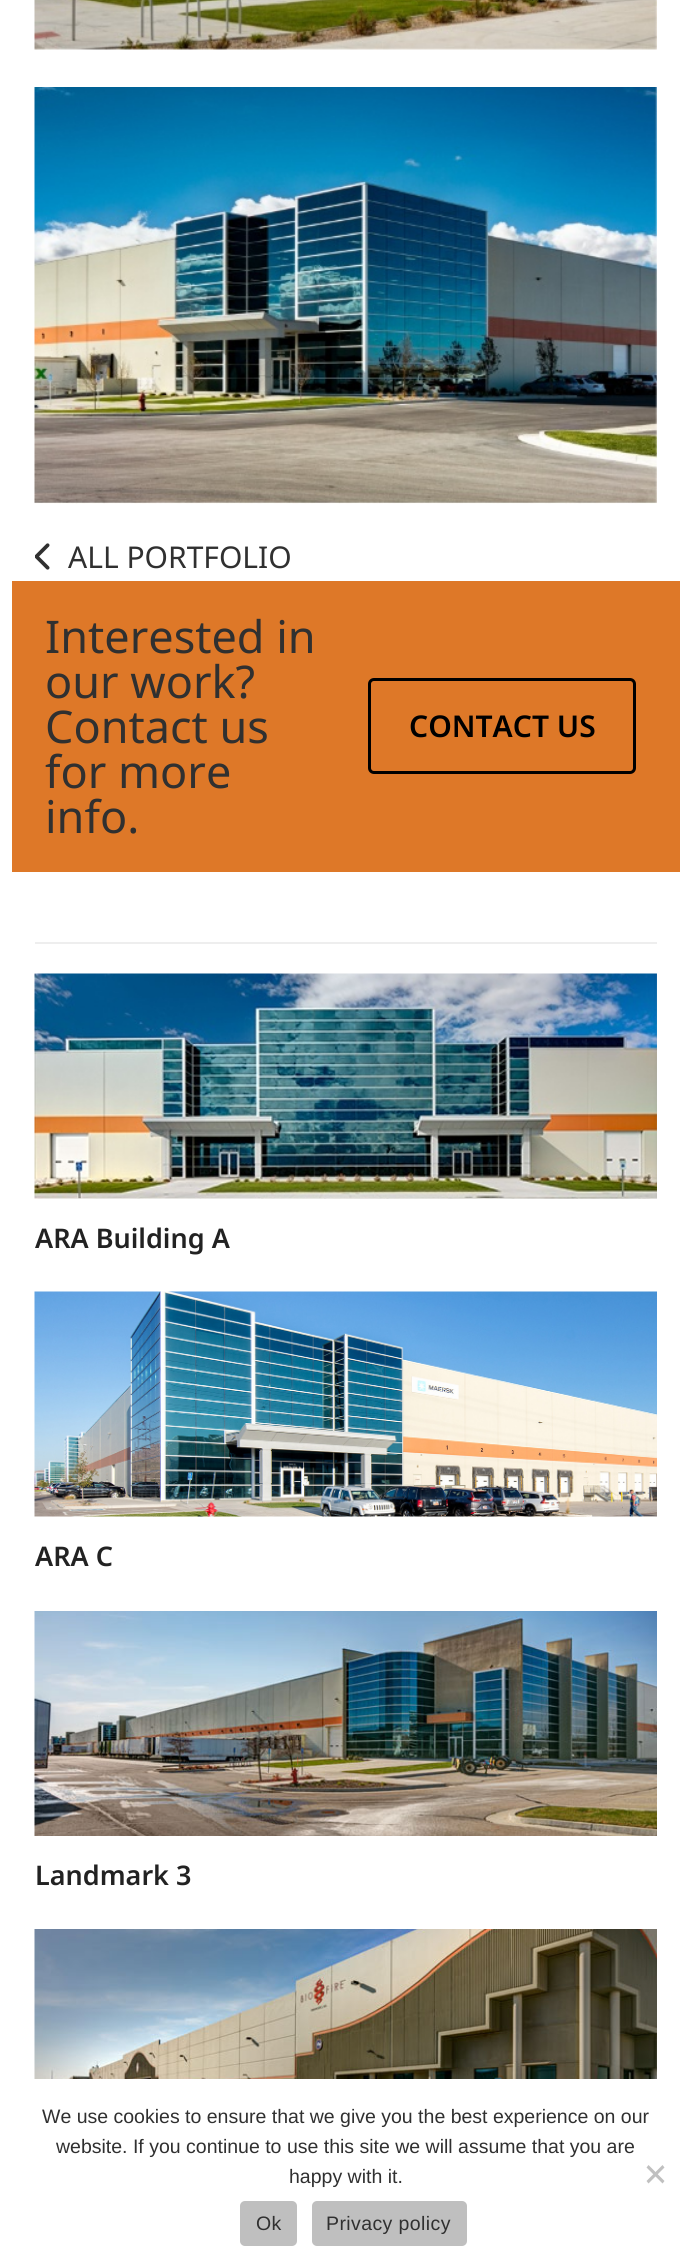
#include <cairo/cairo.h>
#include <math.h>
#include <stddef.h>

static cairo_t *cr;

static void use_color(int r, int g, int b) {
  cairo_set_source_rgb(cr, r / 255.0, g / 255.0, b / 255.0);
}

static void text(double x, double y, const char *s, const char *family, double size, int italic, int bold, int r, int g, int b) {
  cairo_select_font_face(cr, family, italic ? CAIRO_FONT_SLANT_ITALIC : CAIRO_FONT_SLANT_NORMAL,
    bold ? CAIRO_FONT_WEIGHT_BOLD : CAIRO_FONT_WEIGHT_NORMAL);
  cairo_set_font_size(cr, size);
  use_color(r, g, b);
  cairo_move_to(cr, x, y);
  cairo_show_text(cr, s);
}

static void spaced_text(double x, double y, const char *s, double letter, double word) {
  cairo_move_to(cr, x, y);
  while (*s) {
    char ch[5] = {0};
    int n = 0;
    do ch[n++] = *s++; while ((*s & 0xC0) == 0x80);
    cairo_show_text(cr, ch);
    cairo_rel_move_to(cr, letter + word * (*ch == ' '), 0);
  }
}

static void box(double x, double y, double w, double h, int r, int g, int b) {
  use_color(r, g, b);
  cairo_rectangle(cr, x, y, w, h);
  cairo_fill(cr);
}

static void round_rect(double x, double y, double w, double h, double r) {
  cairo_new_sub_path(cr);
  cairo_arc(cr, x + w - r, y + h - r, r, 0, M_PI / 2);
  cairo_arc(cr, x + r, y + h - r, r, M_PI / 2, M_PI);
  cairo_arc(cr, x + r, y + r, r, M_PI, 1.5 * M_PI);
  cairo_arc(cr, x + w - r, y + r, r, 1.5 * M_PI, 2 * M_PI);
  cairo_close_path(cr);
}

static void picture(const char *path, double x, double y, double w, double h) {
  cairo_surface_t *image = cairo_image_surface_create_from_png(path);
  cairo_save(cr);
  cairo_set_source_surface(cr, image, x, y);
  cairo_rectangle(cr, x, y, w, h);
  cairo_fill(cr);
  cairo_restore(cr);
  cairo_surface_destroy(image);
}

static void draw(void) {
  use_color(255, 255, 255);
  cairo_paint(cr);
  picture("img_01.png", 34, 0, 623, 50);
  picture("img_02.png", 34, 87, 623, 417);
  picture("img_03.png", 35, 543, 15, 27);
  box(12, 581, 668, 291, 222, 120, 40);
  round_rect(369.5, 679.5, 265, 93, 4.5);
  use_color(0, 0, 0);
  cairo_set_line_width(cr, 3);
  cairo_stroke(cr);
  box(35, 942, 622, 2, 238, 238, 238);
  picture("img_04.png", 34, 973, 623, 226);
  picture("img_05.png", 34, 1291, 623, 226);
  picture("img_06.png", 34, 1611, 623, 225);
  picture("img_07.png", 34, 1929, 623, 150);
  use_color(192, 192, 192);
  cairo_new_path(cr);
  cairo_move_to(cr, 662.5, 2165);
  cairo_line_to(cr, 664.5, 2167.5);
  cairo_line_to(cr, 648.5, 2183.5);
  cairo_line_to(cr, 646.5, 2181);
  cairo_close_path(cr);
  cairo_fill(cr);
  cairo_new_path(cr);
  cairo_move_to(cr, 646.5, 2167.5);
  cairo_line_to(cr, 648.5, 2165);
  cairo_line_to(cr, 664.5, 2181);
  cairo_line_to(cr, 662.5, 2183.5);
  cairo_close_path(cr);
  cairo_fill(cr);
  use_color(191, 191, 191);
  round_rect(240, 2201, 57, 45, 5);
  cairo_fill(cr);
  round_rect(312, 2201, 155, 45, 5);
  cairo_fill(cr);
  text(68, 568, "ALL PORTFOLIO", "Noto Sans", 30, 0, 0, 48, 48, 48);
  text(45, 653, "Interested in", "Noto Sans", 45, 0, 0, 48, 48, 48);
  text(45, 698, "our work?", "Noto Sans", 45, 0, 0, 48, 48, 48);
  text(45, 743, "Contact us", "Noto Sans", 45, 0, 0, 48, 48, 48);
  text(45, 788, "for more", "Noto Sans", 45, 0, 0, 48, 48, 48);
  text(45, 833, "info.", "Noto Sans", 45, 0, 0, 48, 48, 48);
  text(409, 737, "CONTACT US", "Noto Sans SemiBold", 30, 0, 0, 0, 0, 0);
  text(35, 1248, "ARA Building A", "Noto Sans SemiBold", 27, 0, 0, 34, 34, 34);
  text(35, 1566, "ARA C", "Noto Sans SemiBold", 27, 0, 0, 34, 34, 34);
  text(35, 1885, "Landmark 3", "Noto Sans SemiBold", 27, 0, 0, 34, 34, 34);
  text(42, 2123, "We use cookies to ensure that we give you the best experience on our", "Liberation Sans", 19.5, 0, 0, 48, 48, 48);
  text(56, 2153, "website. If you continue to use this site we will assume that you are", "Liberation Sans", 19.5, 0, 0, 48, 48, 48);
  text(289, 2183, "happy with it.", "Liberation Sans", 19.5, 0, 0, 48, 48, 48);
  spaced_text(256, 2230, "Ok", 0.4, 0);
  spaced_text(326, 2230, "Privacy policy", 0.4, 0);
}

int main(void) {
  cairo_surface_t *surface = cairo_image_surface_create(CAIRO_FORMAT_RGB24, 691, 2268);
  cr = cairo_create(surface);
  cairo_font_options_t *options = cairo_font_options_create();
  cairo_font_options_set_hint_metrics(options, CAIRO_HINT_METRICS_OFF);
  cairo_font_options_set_hint_style(options, CAIRO_HINT_STYLE_NONE);
  cairo_set_font_options(cr, options);
  cairo_set_miter_limit(cr, 4);
  draw();
  cairo_surface_write_to_png(surface, "out.png");
  cairo_font_options_destroy(options);
  cairo_destroy(cr);
  cairo_surface_destroy(surface);
  return 0;
}
